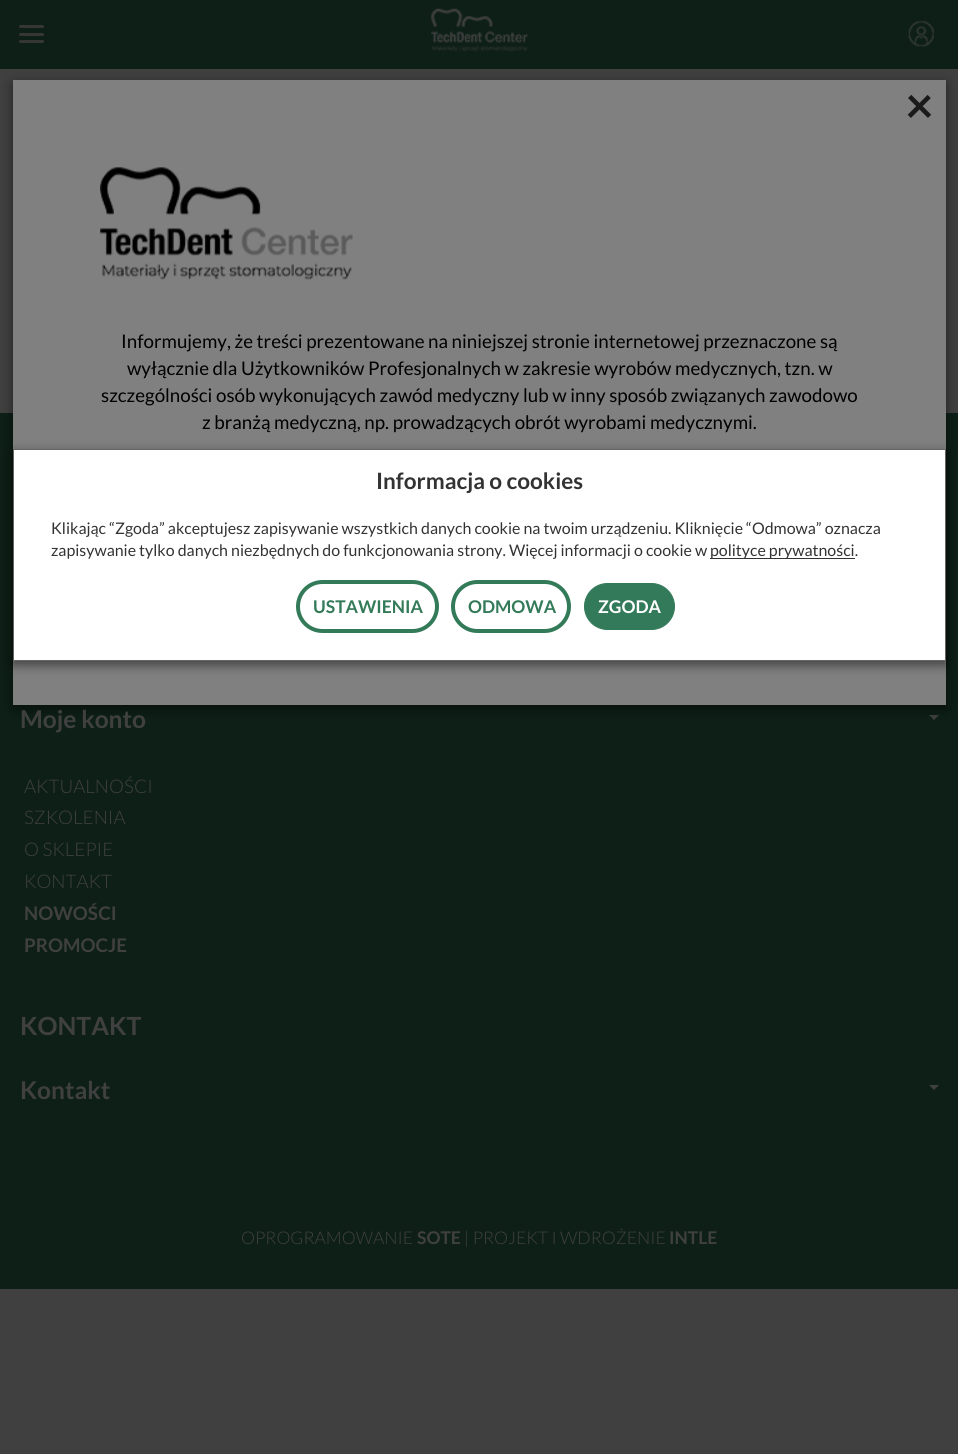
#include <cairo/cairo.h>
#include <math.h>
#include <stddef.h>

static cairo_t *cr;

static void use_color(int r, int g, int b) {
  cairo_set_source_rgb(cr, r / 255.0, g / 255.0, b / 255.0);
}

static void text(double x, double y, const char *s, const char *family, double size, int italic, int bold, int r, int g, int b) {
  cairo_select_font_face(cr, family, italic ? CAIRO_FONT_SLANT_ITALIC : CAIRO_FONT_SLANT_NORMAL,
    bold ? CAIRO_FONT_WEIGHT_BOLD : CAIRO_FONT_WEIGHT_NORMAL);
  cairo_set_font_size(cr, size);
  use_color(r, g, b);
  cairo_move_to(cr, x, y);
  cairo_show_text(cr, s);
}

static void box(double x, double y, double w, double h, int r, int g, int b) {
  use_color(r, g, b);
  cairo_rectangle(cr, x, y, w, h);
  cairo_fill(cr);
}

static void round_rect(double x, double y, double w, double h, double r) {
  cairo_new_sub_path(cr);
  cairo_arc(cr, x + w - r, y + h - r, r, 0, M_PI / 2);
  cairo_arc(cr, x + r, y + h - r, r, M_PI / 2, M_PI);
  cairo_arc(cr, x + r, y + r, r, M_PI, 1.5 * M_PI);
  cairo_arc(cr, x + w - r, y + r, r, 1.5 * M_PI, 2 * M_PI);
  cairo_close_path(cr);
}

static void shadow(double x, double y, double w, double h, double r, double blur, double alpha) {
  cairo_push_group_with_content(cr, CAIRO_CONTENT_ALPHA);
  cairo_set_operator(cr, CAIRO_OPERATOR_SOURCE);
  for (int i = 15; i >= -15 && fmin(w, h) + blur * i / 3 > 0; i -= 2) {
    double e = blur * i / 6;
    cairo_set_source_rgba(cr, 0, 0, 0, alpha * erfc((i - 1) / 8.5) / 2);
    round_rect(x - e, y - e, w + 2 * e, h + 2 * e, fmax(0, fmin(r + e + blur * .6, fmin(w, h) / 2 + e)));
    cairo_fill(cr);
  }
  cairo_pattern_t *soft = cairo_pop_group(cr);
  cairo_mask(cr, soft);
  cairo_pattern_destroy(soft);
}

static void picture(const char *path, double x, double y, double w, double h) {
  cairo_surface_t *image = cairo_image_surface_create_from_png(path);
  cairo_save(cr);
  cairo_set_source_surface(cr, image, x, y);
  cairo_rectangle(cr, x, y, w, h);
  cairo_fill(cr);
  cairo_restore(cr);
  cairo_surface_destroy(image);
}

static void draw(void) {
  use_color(64, 64, 64);
  cairo_paint(cr);
  box(0, 0, 958, 69, 13, 31, 23);
  use_color(54, 54, 54);
  round_rect(19, 25, 25, 3, 1.5);
  cairo_fill(cr);
  round_rect(19, 33, 25, 3, 1.5);
  cairo_fill(cr);
  round_rect(19, 40, 25, 3, 1.5);
  cairo_fill(cr);
  picture("img_01.png", 431, 8, 97, 44);
  picture("img_02.png", 908, 21, 26, 26);
  box(0, 413, 958, 876, 13, 31, 23);
  use_color(64, 64, 64);
  cairo_new_path(cr);
  cairo_move_to(cr, 929, 715);
  cairo_line_to(cr, 939, 715);
  cairo_line_to(cr, 934, 720);
  cairo_close_path(cr);
  cairo_fill(cr);
  use_color(0, 0, 0);
  shadow(13, 84, 933, 625, 0, 5.5, 0.5);
  box(13, 80, 933, 625, 128, 128, 128);
  picture("img_03.png", 100, 167, 253, 113);
  use_color(0, 0, 0);
  shadow(13, 453, 933, 212, 0, 5.5, 0.5);
  use_color(255, 255, 255);
  cairo_rectangle(cr, 13.5, 449.5, 932, 211);
  cairo_fill_preserve(cr);
  use_color(102, 102, 102);
  cairo_set_line_width(cr, 1);
  cairo_stroke(cr);
  box(710, 558, 145, 1, 51, 51, 51);
  round_rect(298, 582, 139, 49, 24.5);
  use_color(51, 122, 89);
  cairo_set_line_width(cr, 4);
  cairo_stroke(cr);
  round_rect(453, 582, 116, 49, 24.5);
  cairo_stroke(cr);
  use_color(51, 122, 90);
  round_rect(584.5, 583.5, 90, 46, 23);
  cairo_fill_preserve(cr);
  cairo_set_line_width(cr, 1);
  cairo_stroke(cr);
  use_color(64, 64, 64);
  cairo_new_path(cr);
  cairo_move_to(cr, 929, 1085);
  cairo_line_to(cr, 939, 1085);
  cairo_line_to(cr, 934, 1090);
  cairo_close_path(cr);
  cairo_fill(cr);
  text(905, 123, "×", "Lato", 50, 0, 1, 26, 26, 26);
  text(121, 348, "Informujemy, że treści prezentowane na niniejszej stronie internetowej przeznaczone są", "Lato", 18.75, 0, 0, 0, 0, 0);
  text(127, 375, "wyłącznie dla Użytkowników Profesjonalnych w zakresie wyrobów medycznych, tzn. w", "Lato", 18.75, 0, 0, 0, 0, 0);
  text(101, 402, "szczególności osób wykonujących zawód medyczny lub w inny sposób związanych zawodowo", "Lato", 18.75, 0, 0, 0, 0, 0);
  text(202, 429, "z branżą medyczną, np. prowadzących obrót wyrobami medycznymi.", "Lato", 18.75, 0, 0, 0, 0, 0);
  text(376, 489, "Informacja o cookies", "Lato", 22.5, 0, 1, 51, 51, 51);
  text(51, 534, "Klikając “Zgoda” akceptujesz zapisywanie wszystkich danych cookie na twoim urządzeniu. Kliknięcie “Odmowa” oznacza", "Lato", 15.95, 0, 0, 51, 51, 51);
  text(51, 556, "zapisywanie tylko danych niezbędnych do funkcjonowania strony. Więcej informacji o cookie w", "Lato", 15.95, 0, 0, 51, 51, 51);
  text(710, 556, "polityce prywatności.", "Lato", 15.95, 0, 0, 51, 51, 51);
  text(313, 613, "USTAWIENIA", "Lato", 17.5, 0, 1, 51, 122, 89);
  text(468, 613, "ODMOWA", "Lato", 17.5, 0, 1, 51, 122, 89);
  text(598, 613, "ZGODA", "Lato", 17.5, 0, 1, 255, 255, 255);
  text(20, 728, "Moje konto", "Lato", 24.5, 0, 1, 64, 64, 64);
  text(24, 793, "AKTUALNOŚCI", "Lato Light", 18.75, 0, 0, 64, 64, 64);
  text(24, 824, "SZKOLENIA", "Lato Light", 18.75, 0, 0, 64, 64, 64);
  text(24, 856, "O SKLEPIE", "Lato Light", 18.75, 0, 0, 64, 64, 64);
  text(24, 888, "KONTAKT", "Lato Light", 18.75, 0, 0, 64, 64, 64);
  text(24, 920, "NOWOŚCI", "Lato", 18.75, 0, 1, 64, 64, 64);
  text(24, 952, "PROMOCJE", "Lato", 18.75, 0, 1, 64, 64, 64);
  text(20, 1035, "KONTAKT", "Lato", 25, 0, 1, 64, 64, 64);
  text(20, 1099, "Kontakt", "Lato", 24.5, 0, 1, 64, 64, 64);
  text(241, 1244, "OPROGRAMOWANIE", "Lato Light", 17.5, 0, 0, 64, 64, 64);
  text(417, 1244, "SOTE", "Lato", 17.5, 0, 1, 64, 64, 64);
  text(464, 1244, "| PROJEKT I WDROŻENIE", "Lato Light", 17.5, 0, 0, 64, 64, 64);
  text(669, 1244, "INTLE", "Lato", 17.5, 0, 1, 64, 64, 64);
}

int main(void) {
  cairo_surface_t *surface = cairo_image_surface_create(CAIRO_FORMAT_RGB24, 958, 1454);
  cr = cairo_create(surface);
  cairo_font_options_t *options = cairo_font_options_create();
  cairo_font_options_set_hint_metrics(options, CAIRO_HINT_METRICS_OFF);
  cairo_font_options_set_hint_style(options, CAIRO_HINT_STYLE_NONE);
  cairo_set_font_options(cr, options);
  cairo_set_miter_limit(cr, 4);
  draw();
  cairo_surface_write_to_png(surface, "out.png");
  cairo_font_options_destroy(options);
  cairo_destroy(cr);
  cairo_surface_destroy(surface);
  return 0;
}
